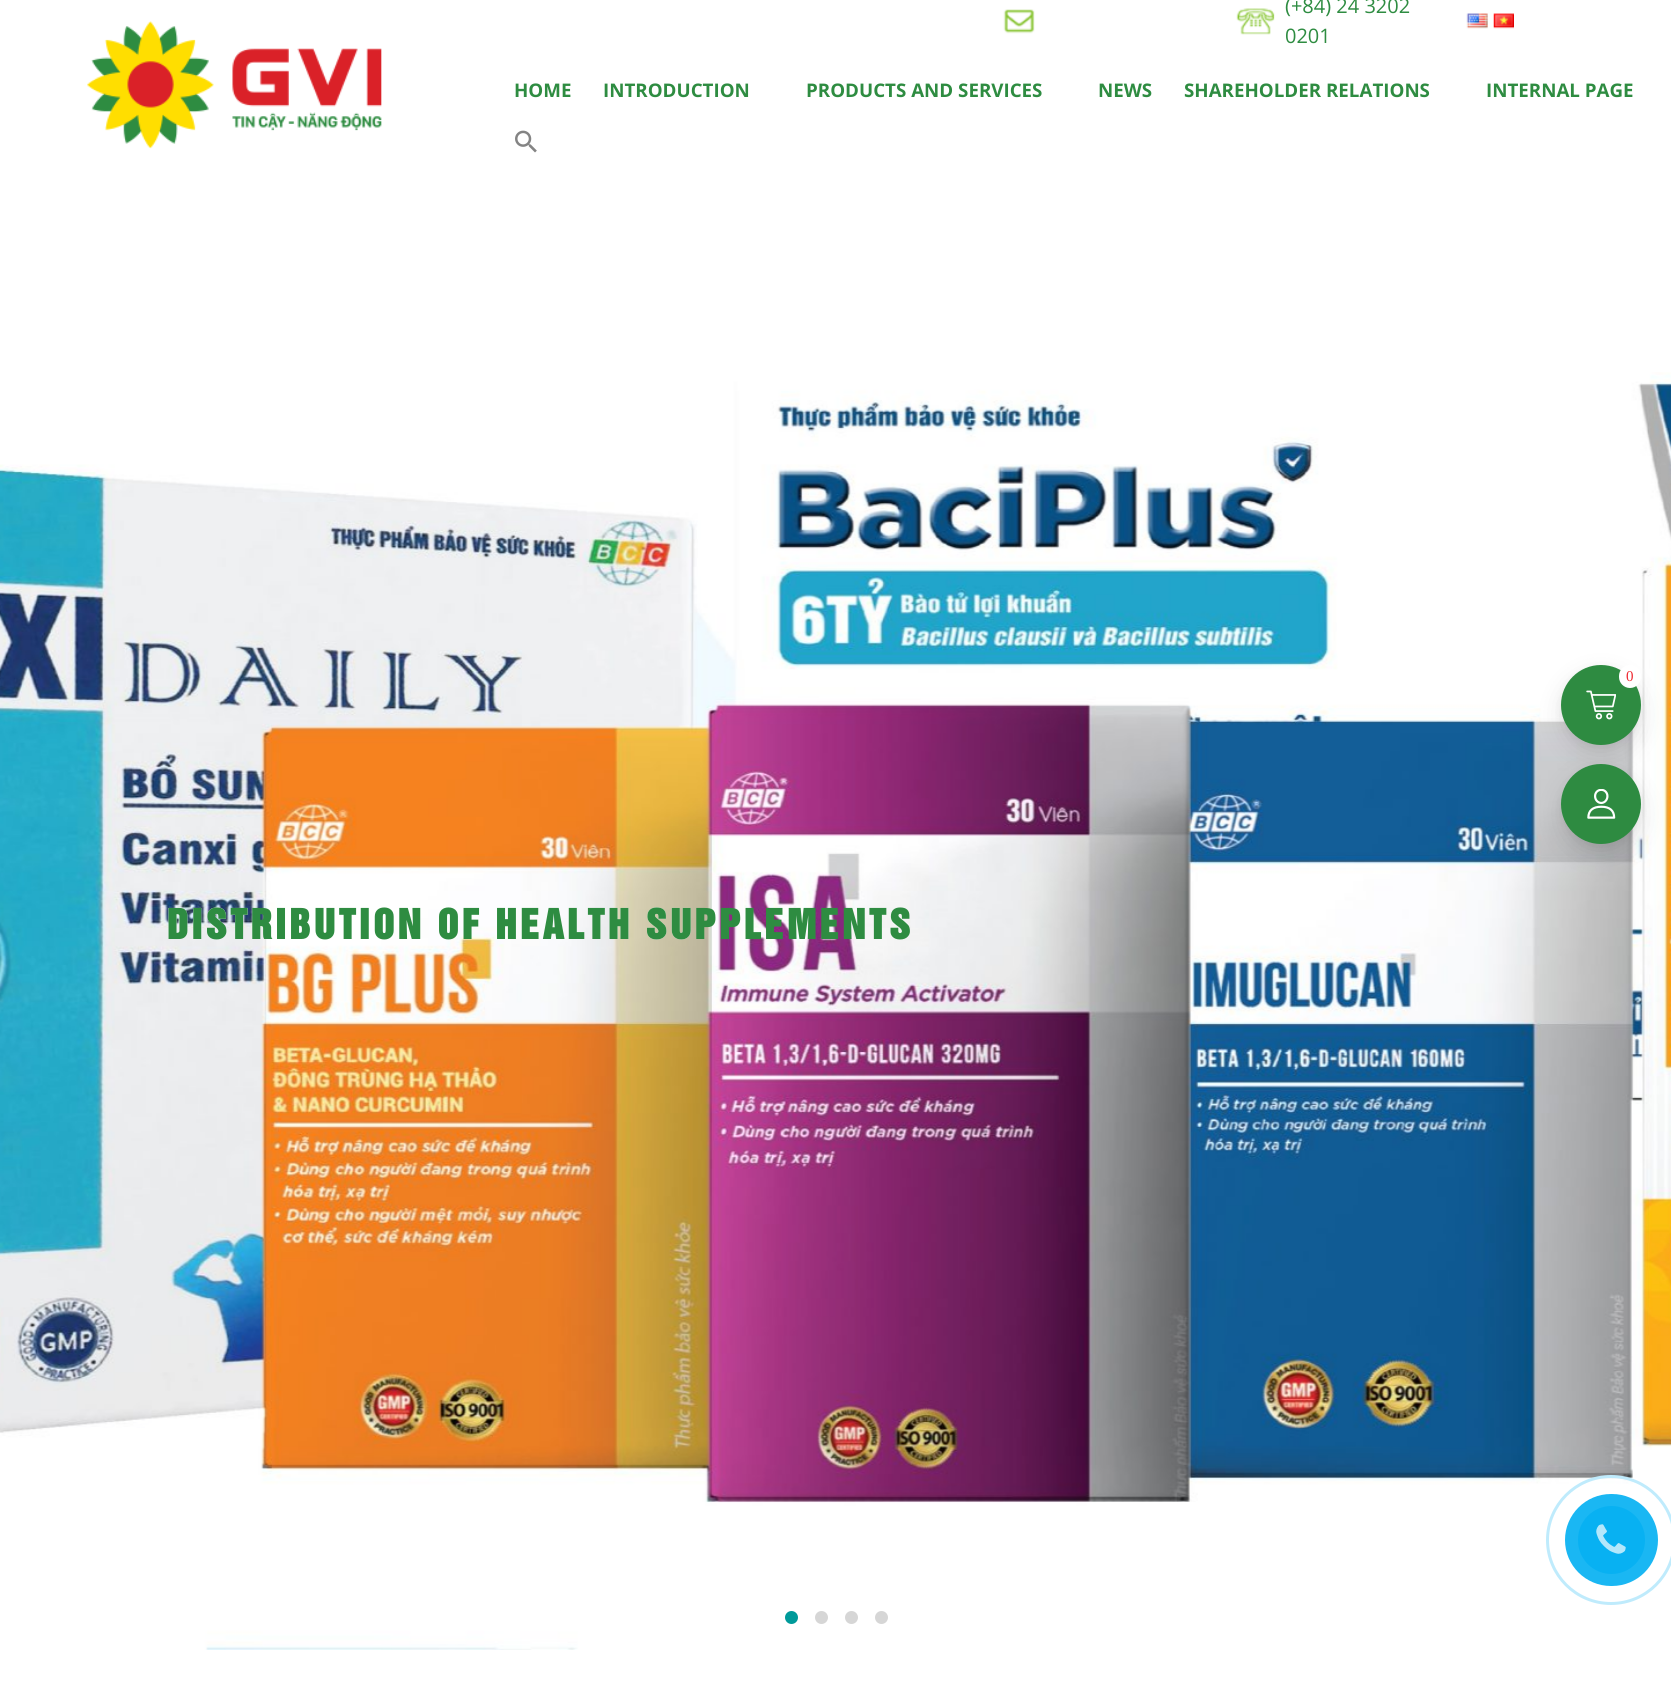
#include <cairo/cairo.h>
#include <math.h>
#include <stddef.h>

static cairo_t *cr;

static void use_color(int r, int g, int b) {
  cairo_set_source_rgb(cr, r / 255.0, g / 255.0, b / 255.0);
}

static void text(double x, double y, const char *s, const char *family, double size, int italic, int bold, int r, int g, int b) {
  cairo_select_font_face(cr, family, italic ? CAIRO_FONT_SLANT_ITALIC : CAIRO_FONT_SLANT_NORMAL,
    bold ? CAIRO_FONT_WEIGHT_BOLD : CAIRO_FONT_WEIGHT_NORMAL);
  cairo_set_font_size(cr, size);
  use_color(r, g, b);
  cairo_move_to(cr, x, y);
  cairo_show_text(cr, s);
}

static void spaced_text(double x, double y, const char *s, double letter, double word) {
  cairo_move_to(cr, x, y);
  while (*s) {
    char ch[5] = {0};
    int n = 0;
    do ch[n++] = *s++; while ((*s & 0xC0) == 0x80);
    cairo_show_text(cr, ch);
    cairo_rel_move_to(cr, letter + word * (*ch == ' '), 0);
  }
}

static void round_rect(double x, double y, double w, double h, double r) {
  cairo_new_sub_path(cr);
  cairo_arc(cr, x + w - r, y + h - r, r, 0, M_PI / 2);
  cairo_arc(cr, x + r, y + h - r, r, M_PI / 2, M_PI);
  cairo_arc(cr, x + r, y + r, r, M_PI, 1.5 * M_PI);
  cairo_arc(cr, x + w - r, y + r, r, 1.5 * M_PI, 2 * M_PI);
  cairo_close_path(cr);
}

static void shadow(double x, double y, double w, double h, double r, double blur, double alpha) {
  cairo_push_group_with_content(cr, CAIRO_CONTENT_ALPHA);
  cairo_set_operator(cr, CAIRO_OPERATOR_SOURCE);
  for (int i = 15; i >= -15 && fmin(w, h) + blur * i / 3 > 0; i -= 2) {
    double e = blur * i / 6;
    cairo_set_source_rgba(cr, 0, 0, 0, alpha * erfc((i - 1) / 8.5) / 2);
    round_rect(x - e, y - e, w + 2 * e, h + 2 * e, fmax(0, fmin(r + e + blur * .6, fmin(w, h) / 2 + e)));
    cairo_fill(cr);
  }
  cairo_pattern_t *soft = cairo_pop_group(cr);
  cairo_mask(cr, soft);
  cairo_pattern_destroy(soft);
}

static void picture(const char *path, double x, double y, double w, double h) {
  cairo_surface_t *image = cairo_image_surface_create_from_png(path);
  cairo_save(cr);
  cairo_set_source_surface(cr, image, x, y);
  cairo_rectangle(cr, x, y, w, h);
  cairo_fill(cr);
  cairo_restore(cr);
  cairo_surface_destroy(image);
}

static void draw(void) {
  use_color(255, 255, 255);
  cairo_paint(cr);
  picture("img_01.png", 87, 21, 295, 128);
  picture("img_02.png", 1003, 9, 32, 25);
  picture("img_03.png", 1236, 8, 39, 27);
  picture("img_04.png", 1466, 13, 22, 16);
  picture("img_05.png", 1493, 13, 21, 16);
  picture("img_06.png", 515, 130, 22, 23);
  picture("img_09.png", 0, 372, 1671, 1278);
  use_color(0, 0, 0);
  shadow(1561, 675, 80, 80, 40, 12, 0.1);
  shadow(1561, 668, 80, 80, 40, 4, 0.05);
  use_color(46, 139, 65);
  cairo_arc(cr, 1601, 705, 40, 0, 2 * M_PI);
  cairo_fill(cr);
  use_color(255, 255, 255);
  round_rect(1619, 665, 22, 23, 11);
  cairo_fill(cr);
  picture("img_07.png", 1586, 690, 30, 30);
  use_color(0, 0, 0);
  shadow(1561, 774, 80, 80, 40, 12, 0.1);
  shadow(1561, 766, 80, 80, 40, 4, 0.05);
  use_color(46, 139, 65);
  cairo_arc(cr, 1601, 804, 40, 0, 2 * M_PI);
  cairo_fill(cr);
  picture("img_08.png", 1587, 789, 29, 30);
  use_color(0, 154, 154);
  cairo_arc(cr, 791.5, 1617.5, 6.5, 0, 2 * M_PI);
  cairo_fill(cr);
  use_color(214, 214, 214);
  cairo_arc(cr, 821.5, 1617.5, 6.5, 0, 2 * M_PI);
  cairo_fill(cr);
  cairo_arc(cr, 851.5, 1617.5, 6.5, 0, 2 * M_PI);
  cairo_fill(cr);
  cairo_arc(cr, 881.5, 1617.5, 6.5, 0, 2 * M_PI);
  cairo_fill(cr);
  cairo_arc(cr, 1611, 1540, 63.5, 0, 2 * M_PI);
  use_color(191, 235, 252);
  cairo_set_line_width(cr, 3);
  cairo_stroke(cr);
  use_color(26, 183, 243);
  round_rect(1565, 1494, 93, 92, 46);
  cairo_fill(cr);
  use_color(8, 177, 242);
  round_rect(1578, 1506, 67, 68, 33.5);
  cairo_fill(cr);
  picture("img_10.png", 1596, 1524, 30, 30);
  text(1285, 13, "(+84) 24 3202", "Open Sans", 20, 0, 0, 46, 140, 65);
  text(1285, 43, "0201", "Open Sans", 20, 0, 0, 46, 140, 65);
  text(514, 97, "HOME", "Open Sans", 18.75, 0, 1, 46, 140, 65);
  text(603, 97, "INTRODUCTION", "Open Sans", 18.75, 0, 1, 46, 140, 65);
  text(806, 97, "PRODUCTS AND SERVICES", "Open Sans", 18.75, 0, 1, 46, 140, 65);
  text(1098, 97, "NEWS", "Open Sans", 18.75, 0, 1, 46, 140, 65);
  text(1184, 97, "SHAREHOLDER RELATIONS", "Open Sans", 18.75, 0, 1, 46, 140, 65);
  text(1486, 97, "INTERNAL PAGE", "Open Sans", 18.75, 0, 1, 46, 140, 65);
  text(1626, 681, "0", "Liberation Serif", 15, 0, 0, 238, 43, 51);
  cairo_select_font_face(cr, "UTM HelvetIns", CAIRO_FONT_SLANT_NORMAL, CAIRO_FONT_WEIGHT_BOLD);
  cairo_set_font_size(cr, 37.5);
  use_color(255, 255, 255);
  spaced_text(167, 939, "DIST", 3.75, 0);
  spaced_text(608, 939, "H SU", 3.75, 0);
  use_color(46, 140, 65);
  spaced_text(167, 939, "DISTRIBUTION OF HEALTH SUPPLEMENTS", 3.75, 0);
}

int main(void) {
  cairo_surface_t *surface = cairo_image_surface_create(CAIRO_FORMAT_RGB24, 1671, 1687);
  cr = cairo_create(surface);
  cairo_font_options_t *options = cairo_font_options_create();
  cairo_font_options_set_hint_metrics(options, CAIRO_HINT_METRICS_OFF);
  cairo_font_options_set_hint_style(options, CAIRO_HINT_STYLE_NONE);
  cairo_set_font_options(cr, options);
  cairo_set_miter_limit(cr, 4);
  draw();
  cairo_surface_write_to_png(surface, "out.png");
  cairo_font_options_destroy(options);
  cairo_destroy(cr);
  cairo_surface_destroy(surface);
  return 0;
}
